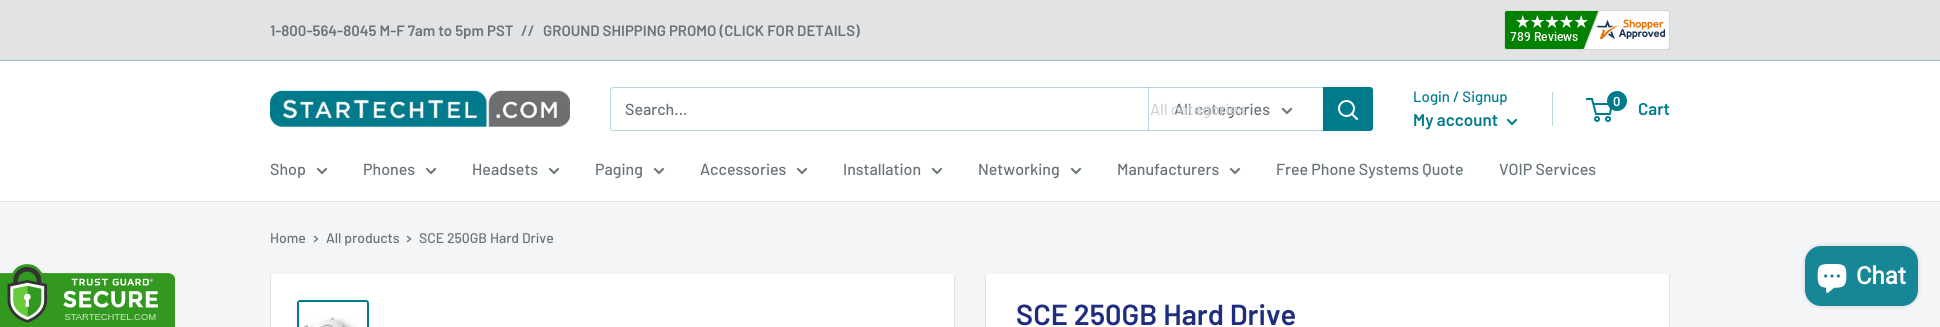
#include <cairo/cairo.h>
#include <math.h>
#include <stddef.h>

static cairo_t *cr;

static void use_color(int r, int g, int b) {
  cairo_set_source_rgb(cr, r / 255.0, g / 255.0, b / 255.0);
}

static void text(double x, double y, const char *s, const char *family, double size, int italic, int bold, int r, int g, int b) {
  cairo_select_font_face(cr, family, italic ? CAIRO_FONT_SLANT_ITALIC : CAIRO_FONT_SLANT_NORMAL,
    bold ? CAIRO_FONT_WEIGHT_BOLD : CAIRO_FONT_WEIGHT_NORMAL);
  cairo_set_font_size(cr, size);
  use_color(r, g, b);
  cairo_move_to(cr, x, y);
  cairo_show_text(cr, s);
}

static void box(double x, double y, double w, double h, int r, int g, int b) {
  use_color(r, g, b);
  cairo_rectangle(cr, x, y, w, h);
  cairo_fill(cr);
}

static void round_rect(double x, double y, double w, double h, double r) {
  cairo_new_sub_path(cr);
  cairo_arc(cr, x + w - r, y + h - r, r, 0, M_PI / 2);
  cairo_arc(cr, x + r, y + h - r, r, M_PI / 2, M_PI);
  cairo_arc(cr, x + r, y + r, r, M_PI, 1.5 * M_PI);
  cairo_arc(cr, x + w - r, y + r, r, 1.5 * M_PI, 2 * M_PI);
  cairo_close_path(cr);
}

static void shadow(double x, double y, double w, double h, double r, double blur, double alpha) {
  cairo_push_group_with_content(cr, CAIRO_CONTENT_ALPHA);
  cairo_set_operator(cr, CAIRO_OPERATOR_SOURCE);
  for (int i = 15; i >= -15 && fmin(w, h) + blur * i / 3 > 0; i -= 2) {
    double e = blur * i / 6;
    cairo_set_source_rgba(cr, 0, 0, 0, alpha * erfc((i - 1) / 8.5) / 2);
    round_rect(x - e, y - e, w + 2 * e, h + 2 * e, fmax(0, fmin(r + e + blur * .6, fmin(w, h) / 2 + e)));
    cairo_fill(cr);
  }
  cairo_pattern_t *soft = cairo_pop_group(cr);
  cairo_mask(cr, soft);
  cairo_pattern_destroy(soft);
}

static void picture(const char *path, double x, double y, double w, double h) {
  cairo_surface_t *image = cairo_image_surface_create_from_png(path);
  cairo_save(cr);
  cairo_set_source_surface(cr, image, x, y);
  cairo_rectangle(cr, x, y, w, h);
  cairo_fill(cr);
  cairo_restore(cr);
  cairo_surface_destroy(image);
}

static void draw(void) {
  use_color(243, 245, 246);
  cairo_paint(cr);
  box(0, 0, 1940, 60, 225, 227, 228);
  box(0, 60, 1940, 1, 158, 196, 202);
  picture("img_01.png", 1504, 10, 166, 40);
  box(0, 61, 1940, 140, 255, 255, 255);
  picture("img_02.png", 270, 90, 300, 37);
  use_color(179, 215, 221);
  cairo_new_path(cr);
  cairo_move_to(cr, 611, 130);
  cairo_curve_to(cr, 611, 131, 612, 131, 613, 131);
  cairo_line_to(cr, 1370, 131);
  cairo_curve_to(cr, 1372, 131, 1373, 130, 1373, 128);
  cairo_line_to(cr, 1373, 90);
  cairo_curve_to(cr, 1373, 89, 1373, 88, 1372, 88);
  cairo_line_to(cr, 1372, 121);
  cairo_curve_to(cr, 1372, 123, 1374, 130, 1369, 130);
  cairo_close_path(cr);
  cairo_fill(cr);
  cairo_new_path(cr);
  cairo_move_to(cr, 614, 88);
  cairo_line_to(cr, 1372, 88);
  cairo_curve_to(cr, 1372, 87, 1371, 87, 1370, 87);
  cairo_line_to(cr, 613, 87);
  cairo_curve_to(cr, 611, 87, 610, 88, 610, 90);
  cairo_line_to(cr, 610, 128);
  cairo_curve_to(cr, 610, 129, 610, 130, 611, 130);
  cairo_line_to(cr, 611, 97);
  cairo_curve_to(cr, 611, 95, 609, 88, 614, 88);
  cairo_close_path(cr);
  cairo_fill(cr);
  cairo_set_source_rgba(cr, 0, 0.482, 0.549, 0.3);
  cairo_rectangle(cr, 1148, 87, 1, 44);
  cairo_fill(cr);
  cairo_new_path(cr);
  cairo_move_to(cr, 1291, 109);
  cairo_line_to(cr, 1287, 113);
  cairo_line_to(cr, 1283, 109);
  use_color(103, 114, 121);
  cairo_set_line_cap(cr, CAIRO_LINE_CAP_SQUARE);
  cairo_stroke(cr);
  use_color(0, 123, 140);
  cairo_new_path(cr);
  cairo_move_to(cr, 1323, 87);
  cairo_line_to(cr, 1370, 87);
  cairo_curve_to(cr, 1371.5, 87, 1373, 88.5, 1373, 90);
  cairo_line_to(cr, 1373, 128);
  cairo_curve_to(cr, 1373, 129.5, 1371.5, 131, 1370, 131);
  cairo_line_to(cr, 1323, 131);
  cairo_close_path(cr);
  cairo_fill(cr);
  cairo_new_path(cr);
  cairo_move_to(cr, 1357, 119);
  cairo_line_to(cr, 1352, 114);
  use_color(255, 255, 255);
  cairo_stroke(cr);
  cairo_arc(cr, 1346.5, 108.5, 7.5, 0, 2 * M_PI);
  cairo_set_line_cap(cr, CAIRO_LINE_CAP_BUTT);
  cairo_stroke(cr);
  box(1552, 92, 1, 34, 179, 215, 221);
  cairo_new_path(cr);
  cairo_move_to(cr, 1516, 120);
  cairo_line_to(cr, 1512, 124);
  cairo_line_to(cr, 1508, 120);
  use_color(0, 123, 140);
  cairo_set_line_cap(cr, CAIRO_LINE_CAP_SQUARE);
  cairo_stroke(cr);
  cairo_arc(cr, 1597, 119, 2, 0, 2 * M_PI);
  cairo_set_line_cap(cr, CAIRO_LINE_CAP_BUTT);
  cairo_stroke(cr);
  cairo_arc(cr, 1608, 119, 2, 0, 2 * M_PI);
  cairo_stroke(cr);
  cairo_new_path(cr);
  cairo_move_to(cr, 1593.5, 104);
  cairo_line_to(cr, 1611.5, 104);
  cairo_line_to(cr, 1610, 114);
  cairo_line_to(cr, 1596, 114);
  cairo_line_to(cr, 1592, 99);
  cairo_line_to(cr, 1586, 99);
  cairo_stroke(cr);
  cairo_arc(cr, 1617, 101, 10, 0, 2 * M_PI);
  cairo_fill(cr);
  box(0, 201, 1940, 1, 225, 227, 228);
  cairo_new_path(cr);
  cairo_move_to(cr, 326, 169);
  cairo_line_to(cr, 322, 173);
  cairo_line_to(cr, 318, 169);
  use_color(103, 114, 121);
  cairo_set_line_cap(cr, CAIRO_LINE_CAP_SQUARE);
  cairo_stroke(cr);
  cairo_new_path(cr);
  cairo_move_to(cr, 435, 169);
  cairo_line_to(cr, 431, 173);
  cairo_line_to(cr, 427, 169);
  cairo_stroke(cr);
  cairo_new_path(cr);
  cairo_move_to(cr, 558, 169);
  cairo_line_to(cr, 554, 173);
  cairo_line_to(cr, 550, 169);
  cairo_stroke(cr);
  cairo_new_path(cr);
  cairo_move_to(cr, 663, 169);
  cairo_line_to(cr, 659, 173);
  cairo_line_to(cr, 655, 169);
  cairo_stroke(cr);
  cairo_new_path(cr);
  cairo_move_to(cr, 806, 169);
  cairo_line_to(cr, 802, 173);
  cairo_line_to(cr, 798, 169);
  cairo_stroke(cr);
  cairo_new_path(cr);
  cairo_move_to(cr, 941, 169);
  cairo_line_to(cr, 937, 173);
  cairo_line_to(cr, 933, 169);
  cairo_stroke(cr);
  cairo_new_path(cr);
  cairo_move_to(cr, 1080, 169);
  cairo_line_to(cr, 1076, 173);
  cairo_line_to(cr, 1072, 169);
  cairo_stroke(cr);
  cairo_new_path(cr);
  cairo_move_to(cr, 1239, 169);
  cairo_line_to(cr, 1235, 173);
  cairo_line_to(cr, 1231, 169);
  cairo_stroke(cr);
  picture("img_03.png", 0, 264, 175, 63);
  cairo_new_path(cr);
  cairo_move_to(cr, 314.5, 236.5);
  cairo_line_to(cr, 317.5, 239);
  cairo_line_to(cr, 314.5, 241.5);
  cairo_set_line_width(cr, 1.3);
  cairo_stroke(cr);
  cairo_new_path(cr);
  cairo_move_to(cr, 407.5, 236.5);
  cairo_line_to(cr, 410.5, 239);
  cairo_line_to(cr, 407.5, 241.5);
  cairo_stroke(cr);
  use_color(255, 255, 255);
  round_rect(270, 274, 685, 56, 3);
  cairo_fill(cr);
  use_color(225, 227, 228);
  cairo_set_fill_rule(cr, CAIRO_FILL_RULE_EVEN_ODD);
  cairo_new_path(cr);
  cairo_move_to(cr, 273, 274);
  cairo_line_to(cr, 952, 274);
  cairo_curve_to(cr, 954, 274, 955, 275, 955, 277);
  cairo_line_to(cr, 955, 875);
  cairo_curve_to(cr, 955, 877, 954, 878, 952, 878);
  cairo_line_to(cr, 273, 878);
  cairo_curve_to(cr, 271, 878, 270, 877, 270, 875);
  cairo_line_to(cr, 270, 277);
  cairo_curve_to(cr, 270, 275, 271, 274, 273, 274);
  cairo_close_path(cr);
  cairo_move_to(cr, 273, 274);
  cairo_line_to(cr, 952, 274);
  cairo_curve_to(cr, 953, 274, 954, 275, 954, 277);
  cairo_line_to(cr, 954, 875);
  cairo_curve_to(cr, 954, 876, 953, 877, 952, 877);
  cairo_line_to(cr, 273, 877);
  cairo_curve_to(cr, 272, 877, 271, 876, 271, 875);
  cairo_line_to(cr, 271, 277);
  cairo_curve_to(cr, 271, 275, 272, 274, 273, 274);
  cairo_close_path(cr);
  cairo_fill(cr);
  round_rect(298, 301, 70, 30, 2);
  use_color(0, 123, 140);
  cairo_set_line_width(cr, 2);
  cairo_set_line_cap(cr, CAIRO_LINE_CAP_BUTT);
  cairo_stroke(cr);
  picture("img_04.png", 303, 317, 54, 10);
  use_color(255, 255, 255);
  round_rect(985, 274, 685, 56, 3);
  cairo_fill(cr);
  use_color(225, 227, 228);
  cairo_new_path(cr);
  cairo_move_to(cr, 988, 274);
  cairo_line_to(cr, 1667, 274);
  cairo_curve_to(cr, 1669, 274, 1670, 275, 1670, 277);
  cairo_line_to(cr, 1670, 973);
  cairo_curve_to(cr, 1670, 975, 1669, 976, 1667, 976);
  cairo_line_to(cr, 988, 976);
  cairo_curve_to(cr, 986, 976, 985, 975, 985, 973);
  cairo_line_to(cr, 985, 277);
  cairo_curve_to(cr, 985, 275, 986, 274, 988, 274);
  cairo_close_path(cr);
  cairo_move_to(cr, 988, 274);
  cairo_line_to(cr, 1667, 274);
  cairo_curve_to(cr, 1668, 274, 1669, 275, 1669, 277);
  cairo_line_to(cr, 1669, 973);
  cairo_curve_to(cr, 1669, 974, 1668, 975, 1667, 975);
  cairo_line_to(cr, 988, 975);
  cairo_curve_to(cr, 987, 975, 986, 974, 986, 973);
  cairo_line_to(cr, 986, 277);
  cairo_curve_to(cr, 986, 275, 987, 274, 988, 274);
  cairo_close_path(cr);
  cairo_fill(cr);
  use_color(0, 0, 0);
  shadow(1805, 246, 113, 60, 16, 2.5, 0.15);
  use_color(23, 134, 151);
  round_rect(1805, 246, 113, 60, 16);
  cairo_fill(cr);
  picture("img_05.png", 1817, 264, 30, 29);
  text(270, 36, "1-800-564-8045 M-F 7am to 5pm PST", "Barlow SemiBold", 15, 0, 0, 103, 114, 121);
  text(521, 36, "//", "Barlow SemiBold", 15, 0, 0, 103, 114, 121);
  text(543, 36, "GROUND SHIPPING PROMO (CLICK FOR DETAILS)", "Barlow SemiBold", 15, 0, 0, 103, 114, 121);
  text(625, 115, "Search...", "Barlow Medium", 16, 0, 0, 103, 114, 121);
  text(1174, 115, "All categories", "Barlow Medium", 16, 0, 0, 103, 114, 121);
  text(1150, 115, "All categories", "Barlow Medium", 16, 0, 0, 209, 212, 215);
  text(1413, 102, "Login / Signup", "Barlow Medium", 15, 0, 0, 0, 123, 140);
  text(1413, 126, "My account", "Barlow SemiBold", 17, 0, 0, 0, 123, 140);
  text(1613, 106, "0", "Barlow SemiBold", 13, 0, 0, 255, 255, 255);
  text(1638, 115, "Cart", "Barlow SemiBold", 17, 0, 0, 0, 123, 140);
  text(270, 175, "Shop", "Barlow Medium", 16, 0, 0, 103, 114, 121);
  text(363, 175, "Phones", "Barlow Medium", 16, 0, 0, 103, 114, 121);
  text(472, 175, "Headsets", "Barlow Medium", 16, 0, 0, 103, 114, 121);
  text(595, 175, "Paging", "Barlow Medium", 16, 0, 0, 103, 114, 121);
  text(700, 175, "Accessories", "Barlow Medium", 16, 0, 0, 103, 114, 121);
  text(843, 175, "Installation", "Barlow Medium", 16, 0, 0, 103, 114, 121);
  text(978, 175, "Networking", "Barlow Medium", 16, 0, 0, 103, 114, 121);
  text(1117, 175, "Manufacturers", "Barlow Medium", 16, 0, 0, 103, 114, 121);
  text(1276, 175, "Free Phone Systems Quote", "Barlow Medium", 16, 0, 0, 103, 114, 121);
  text(1499, 175, "VOIP Services", "Barlow Medium", 16, 0, 0, 103, 114, 121);
  text(270, 243, "Home", "Barlow Medium", 14, 0, 0, 103, 114, 121);
  text(326, 243, "All products", "Barlow Medium", 14, 0, 0, 103, 114, 121);
  text(419, 243, "SCE 250GB Hard Drive", "Barlow Medium", 14, 0, 0, 103, 114, 121);
  text(1016, 325, "SCE 250GB Hard Drive", "Barlow SemiBold", 29, 0, 0, 30, 45, 125);
  text(1856, 284, "Chat", "Roboto", 24, 0, 1, 255, 255, 255);
}

int main(void) {
  cairo_surface_t *surface = cairo_image_surface_create(CAIRO_FORMAT_RGB24, 1940, 327);
  cr = cairo_create(surface);
  cairo_font_options_t *options = cairo_font_options_create();
  cairo_font_options_set_hint_metrics(options, CAIRO_HINT_METRICS_OFF);
  cairo_font_options_set_hint_style(options, CAIRO_HINT_STYLE_NONE);
  cairo_set_font_options(cr, options);
  cairo_set_miter_limit(cr, 4);
  draw();
  cairo_surface_write_to_png(surface, "out.png");
  cairo_font_options_destroy(options);
  cairo_destroy(cr);
  cairo_surface_destroy(surface);
  return 0;
}
